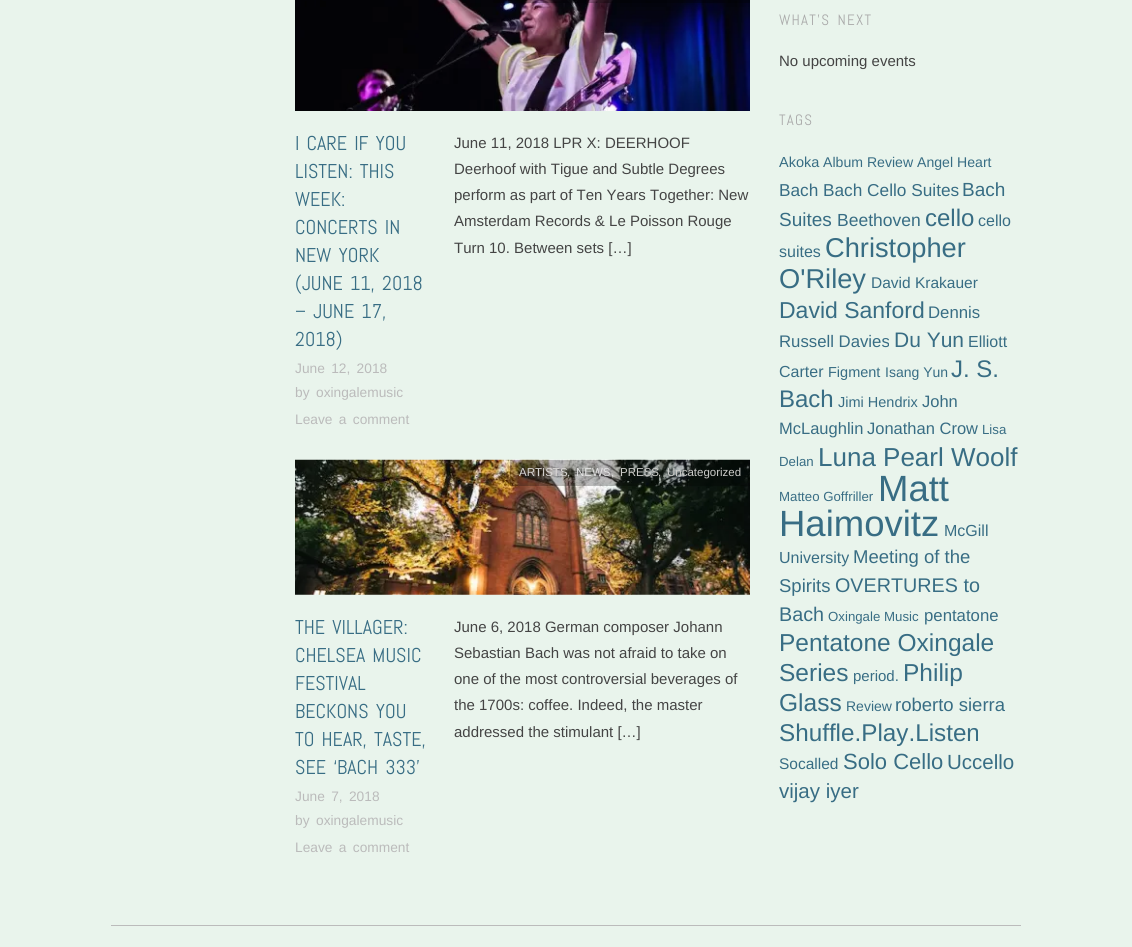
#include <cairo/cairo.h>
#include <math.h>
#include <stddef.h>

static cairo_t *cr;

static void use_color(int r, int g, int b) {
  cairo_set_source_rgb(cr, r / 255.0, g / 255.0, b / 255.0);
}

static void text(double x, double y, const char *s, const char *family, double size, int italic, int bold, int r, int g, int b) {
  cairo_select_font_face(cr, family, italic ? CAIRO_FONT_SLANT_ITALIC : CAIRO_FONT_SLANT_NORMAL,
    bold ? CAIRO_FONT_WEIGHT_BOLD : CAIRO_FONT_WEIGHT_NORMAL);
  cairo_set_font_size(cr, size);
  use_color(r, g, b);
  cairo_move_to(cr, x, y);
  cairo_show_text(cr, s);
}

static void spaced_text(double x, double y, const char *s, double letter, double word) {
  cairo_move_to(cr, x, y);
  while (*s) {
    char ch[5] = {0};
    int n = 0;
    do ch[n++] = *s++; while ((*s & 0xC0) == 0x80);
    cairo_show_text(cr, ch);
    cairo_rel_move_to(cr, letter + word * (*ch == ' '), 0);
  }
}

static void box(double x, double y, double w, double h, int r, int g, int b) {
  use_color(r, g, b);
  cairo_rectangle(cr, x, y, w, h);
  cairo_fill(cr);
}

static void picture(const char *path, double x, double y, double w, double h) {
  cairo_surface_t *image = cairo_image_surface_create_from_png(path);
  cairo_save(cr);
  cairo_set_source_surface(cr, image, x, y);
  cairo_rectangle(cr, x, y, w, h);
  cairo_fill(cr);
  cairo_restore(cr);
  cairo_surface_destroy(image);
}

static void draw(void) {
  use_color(233, 244, 236);
  cairo_paint(cr);
  picture("img_01.png", 295, 0, 455, 111);
  cairo_set_source_rgba(cr, 0, 0, 0, 0.25);
  cairo_rectangle(cr, 493, 0, 257, 3);
  cairo_fill(cr);
  picture("img_02.png", 295, 459, 455, 136);
  cairo_rectangle(cr, 510, 460, 240, 26);
  cairo_fill(cr);
  box(111, 925, 910, 1, 187, 187, 187);
  cairo_select_font_face(cr, "Abel", CAIRO_FONT_SLANT_NORMAL, CAIRO_FONT_WEIGHT_NORMAL);
  cairo_set_font_size(cr, 20);
  use_color(56, 109, 132);
  spaced_text(295, 150, "I CARE IF YOU", 0, 2.5);
  spaced_text(295, 178, "LISTEN: THIS", 0, 2.5);
  text(295, 206, "WEEK:", "Abel", 20, 0, 0, 56, 109, 132);
  spaced_text(295, 234, "CONCERTS IN", 0, 2.5);
  spaced_text(295, 262, "NEW YORK", 0, 2.5);
  spaced_text(295, 290, "(JUNE 11, 2018", 0, 2.5);
  spaced_text(295, 318, "– JUNE 17,", 0, 2.5);
  text(295, 346, "2018)", "Abel", 20, 0, 0, 56, 109, 132);
  cairo_select_font_face(cr, "Liberation Sans", CAIRO_FONT_SLANT_NORMAL, CAIRO_FONT_WEIGHT_NORMAL);
  cairo_set_font_size(cr, 13.75);
  use_color(187, 187, 187);
  spaced_text(295, 373, "June 12, 2018", 0, 2.5);
  text(295, 397, "by", "Liberation Sans", 13.75, 0, 0, 187, 187, 187);
  text(316, 397, "oxingalemusic", "Liberation Sans", 13.75, 0, 0, 187, 187, 187);
  spaced_text(295, 424, "Leave a comment", 0, 2.5);
  text(454, 148, "June 11, 2018 LPR X: DEERHOOF", "Liberation Sans", 15, 0, 0, 68, 68, 68);
  text(454, 174, "Deerhoof with Tigue and Subtle Degrees", "Liberation Sans", 15, 0, 0, 68, 68, 68);
  text(454, 200, "perform as part of Ten Years Together: New", "Liberation Sans", 15, 0, 0, 68, 68, 68);
  text(454, 226, "Amsterdam Records & Le Poisson Rouge", "Liberation Sans", 15, 0, 0, 68, 68, 68);
  text(454, 253, "Turn 10. Between sets […]", "Liberation Sans", 15, 0, 0, 68, 68, 68);
  text(519, 476, "ARTISTS", "Liberation Sans", 11.5, 0, 0, 216, 214, 212);
  text(567, 476, ",", "Liberation Sans", 11.5, 0, 0, 204, 204, 201);
  text(576, 476, "NEWS", "Liberation Sans", 11.5, 0, 0, 226, 226, 226);
  text(611, 476, ",", "Liberation Sans", 11.5, 0, 0, 226, 226, 226);
  text(620, 476, "PRESS", "Liberation Sans", 11.5, 0, 0, 204, 204, 201);
  text(658, 476, ",", "Liberation Sans", 11.5, 0, 0, 204, 204, 201);
  text(667, 476, "Uncategorized", "Liberation Sans", 11.5, 0, 0, 204, 204, 201);
  cairo_select_font_face(cr, "Abel", CAIRO_FONT_SLANT_NORMAL, CAIRO_FONT_WEIGHT_NORMAL);
  cairo_set_font_size(cr, 20);
  use_color(56, 109, 132);
  spaced_text(295, 634, "THE VILLAGER:", 0, 2.5);
  spaced_text(295, 662, "CHELSEA MUSIC", 0, 2.5);
  text(295, 690, "FESTIVAL", "Abel", 20, 0, 0, 56, 109, 132);
  spaced_text(295, 718, "BECKONS YOU", 0, 2.5);
  spaced_text(295, 746, "TO HEAR, TASTE,", 0, 2.5);
  spaced_text(295, 774, "SEE ‘BACH 333’", 0, 2.5);
  cairo_select_font_face(cr, "Liberation Sans", CAIRO_FONT_SLANT_NORMAL, CAIRO_FONT_WEIGHT_NORMAL);
  cairo_set_font_size(cr, 13.75);
  use_color(187, 187, 187);
  spaced_text(295, 801, "June 7, 2018", 0, 2.5);
  text(295, 825, "by", "Liberation Sans", 13.75, 0, 0, 187, 187, 187);
  text(316, 825, "oxingalemusic", "Liberation Sans", 13.75, 0, 0, 187, 187, 187);
  spaced_text(295, 852, "Leave a comment", 0, 2.5);
  text(454, 632, "June 6, 2018 German composer Johann", "Liberation Sans", 15, 0, 0, 68, 68, 68);
  text(454, 658, "Sebastian Bach was not afraid to take on", "Liberation Sans", 15, 0, 0, 68, 68, 68);
  text(454, 684, "one of the most controversial beverages of", "Liberation Sans", 15, 0, 0, 68, 68, 68);
  text(454, 710, "the 1700s: coffee. Indeed, the master", "Liberation Sans", 15, 0, 0, 68, 68, 68);
  text(454, 737, "addressed the stimulant […]", "Liberation Sans", 15, 0, 0, 68, 68, 68);
  cairo_select_font_face(cr, "Abel", CAIRO_FONT_SLANT_NORMAL, CAIRO_FONT_WEIGHT_NORMAL);
  use_color(170, 170, 170);
  spaced_text(779, 25, "WHAT'S NEXT", 1.25, 2.5);
  text(779, 66, "No upcoming events", "Liberation Sans", 15, 0, 0, 68, 68, 68);
  cairo_select_font_face(cr, "Abel", CAIRO_FONT_SLANT_NORMAL, CAIRO_FONT_WEIGHT_NORMAL);
  use_color(170, 170, 170);
  spaced_text(779, 125, "TAGS", 1.25, 0);
  text(779, 167, "Akoka", "Liberation Sans", 14.5, 0, 0, 56, 109, 132);
  text(823, 167, "Album Review Angel Heart", "Liberation Sans", 14.1, 0, 0, 56, 109, 132);
  text(779, 196, "Bach", "Liberation Sans", 17.25, 0, 0, 56, 109, 132);
  text(823, 196, "Bach Cello Suites", "Liberation Sans", 17.25, 0, 0, 56, 109, 132);
  text(962, 196, "Bach", "Liberation Sans", 19, 0, 0, 56, 109, 132);
  text(779, 226, "Suites", "Liberation Sans", 19, 0, 0, 56, 109, 132);
  text(837, 226, "Beethoven", "Liberation Sans", 17.5, 0, 0, 56, 109, 132);
  text(925, 226, "cello", "Liberation Sans", 24, 0, 0, 56, 109, 132);
  text(978, 226, "cello", "Liberation Sans", 16, 0, 0, 56, 109, 132);
  text(779, 257, "suites", "Liberation Sans", 16, 0, 0, 56, 109, 132);
  text(825, 257, "Christopher", "Liberation Sans", 27.25, 0, 0, 56, 109, 132);
  text(779, 288, "O'Riley", "Liberation Sans", 27.25, 0, 0, 56, 109, 132);
  text(871, 288, "David Krakauer", "Liberation Sans", 15.5, 0, 0, 56, 109, 132);
  text(779, 318, "David Sanford", "Liberation Sans", 23, 0, 0, 56, 109, 132);
  text(928, 318, "Dennis", "Liberation Sans", 16.75, 0, 0, 56, 109, 132);
  text(779, 347, "Russell Davies", "Liberation Sans", 16.75, 0, 0, 56, 109, 132);
  text(894, 347, "Du Yun", "Liberation Sans", 21, 0, 0, 56, 109, 132);
  text(968, 347, "Elliott", "Liberation Sans", 16, 0, 0, 56, 109, 132);
  text(779, 377, "Carter", "Liberation Sans", 16, 0, 0, 56, 109, 132);
  text(828, 377, "Figment", "Liberation Sans", 14.5, 0, 0, 56, 109, 132);
  text(885, 377, "Isang Yun", "Liberation Sans", 14, 0, 0, 56, 109, 132);
  text(951, 377, "J. S.", "Liberation Sans", 24, 0, 0, 56, 109, 132);
  text(779, 407, "Bach", "Liberation Sans", 24, 0, 0, 56, 109, 132);
  text(838, 407, "Jimi Hendrix", "Liberation Sans", 14.5, 0, 0, 56, 109, 132);
  text(922, 407, "John", "Liberation Sans", 16.5, 0, 0, 56, 109, 132);
  text(779, 434, "McLaughlin", "Liberation Sans", 16.5, 0, 0, 56, 109, 132);
  text(867, 434, "Jonathan Crow", "Liberation Sans", 16.5, 0, 0, 56, 109, 132);
  text(982, 434, "Lisa", "Liberation Sans", 13.25, 0, 0, 56, 109, 132);
  text(779, 466, "Delan", "Liberation Sans", 13.25, 0, 0, 56, 109, 132);
  text(818, 466, "Luna Pearl Woolf", "Liberation Sans", 26, 0, 0, 56, 109, 132);
  text(779, 501, "Matteo Goffriller", "Liberation Sans", 13.25, 0, 0, 56, 109, 132);
  text(878, 501, "Matt", "Liberation Sans", 36.5, 0, 0, 56, 109, 132);
  text(779, 536, "Haimovitz", "Liberation Sans", 36.5, 0, 0, 56, 109, 132);
  text(944, 536, "McGill", "Liberation Sans", 16, 0, 0, 56, 109, 132);
  text(779, 563, "University", "Liberation Sans", 16, 0, 0, 56, 109, 132);
  text(853, 563, "Meeting of the", "Liberation Sans", 18.5, 0, 0, 56, 109, 132);
  text(779, 592, "Spirits", "Liberation Sans", 18.5, 0, 0, 56, 109, 132);
  text(835, 592, "OVERTURES to", "Liberation Sans", 19.75, 0, 0, 56, 109, 132);
  text(779, 621, "Bach", "Liberation Sans", 19.75, 0, 0, 56, 109, 132);
  text(828, 621, "Oxingale Music", "Liberation Sans", 13.25, 0, 0, 56, 109, 132);
  text(924, 621, "pentatone", "Liberation Sans", 16.75, 0, 0, 56, 109, 132);
  text(779, 651, "Pentatone Oxingale", "Liberation Sans", 24.5, 0, 0, 56, 109, 132);
  text(779, 681, "Series", "Liberation Sans", 24.5, 0, 0, 56, 109, 132);
  text(853, 681, "period.", "Liberation Sans", 15, 0, 0, 56, 109, 132);
  text(903, 681, "Philip", "Liberation Sans", 24.5, 0, 0, 56, 109, 132);
  text(779, 711, "Glass", "Liberation Sans", 24.5, 0, 0, 56, 109, 132);
  text(846, 711, "Review", "Liberation Sans", 14, 0, 0, 56, 109, 132);
  text(895, 711, "roberto sierra", "Liberation Sans", 18.5, 0, 0, 56, 109, 132);
  text(779, 741, "Shuffle.Play.Listen", "Liberation Sans", 24.25, 0, 0, 56, 109, 132);
  text(779, 769, "Socalled", "Liberation Sans", 15.5, 0, 0, 56, 109, 132);
  text(843, 769, "Solo Cello", "Liberation Sans", 22, 0, 0, 56, 109, 132);
  text(947, 769, "Uccello", "Liberation Sans", 20.5, 0, 0, 56, 109, 132);
  text(779, 798, "vijay iyer", "Liberation Sans", 20.5, 0, 0, 56, 109, 132);
}

int main(void) {
  cairo_surface_t *surface = cairo_image_surface_create(CAIRO_FORMAT_RGB24, 1132, 947);
  cr = cairo_create(surface);
  cairo_font_options_t *options = cairo_font_options_create();
  cairo_font_options_set_hint_metrics(options, CAIRO_HINT_METRICS_OFF);
  cairo_font_options_set_hint_style(options, CAIRO_HINT_STYLE_NONE);
  cairo_set_font_options(cr, options);
  cairo_set_miter_limit(cr, 4);
  draw();
  cairo_surface_write_to_png(surface, "out.png");
  cairo_font_options_destroy(options);
  cairo_destroy(cr);
  cairo_surface_destroy(surface);
  return 0;
}
